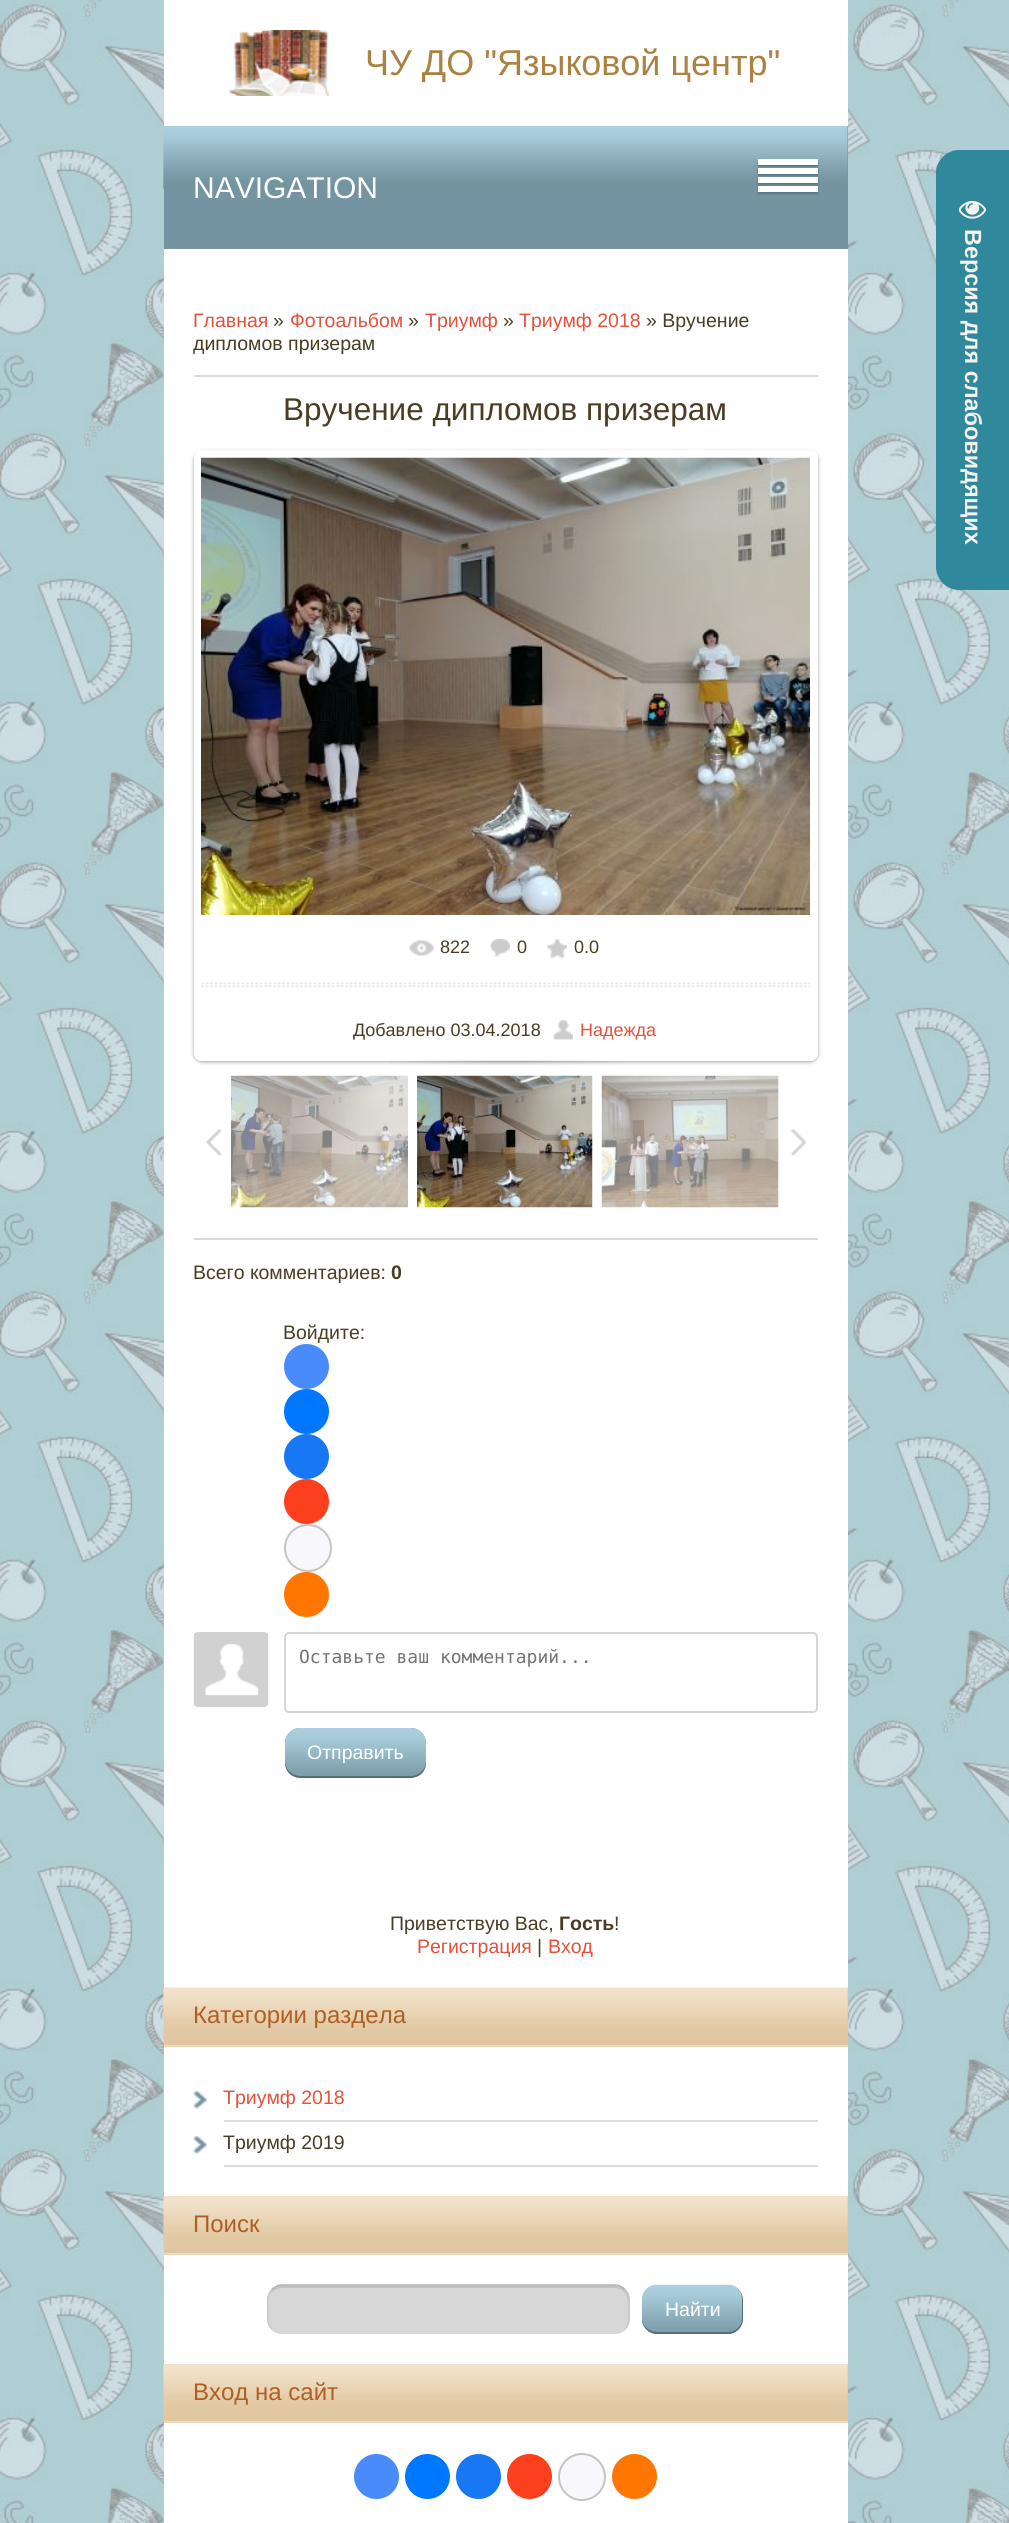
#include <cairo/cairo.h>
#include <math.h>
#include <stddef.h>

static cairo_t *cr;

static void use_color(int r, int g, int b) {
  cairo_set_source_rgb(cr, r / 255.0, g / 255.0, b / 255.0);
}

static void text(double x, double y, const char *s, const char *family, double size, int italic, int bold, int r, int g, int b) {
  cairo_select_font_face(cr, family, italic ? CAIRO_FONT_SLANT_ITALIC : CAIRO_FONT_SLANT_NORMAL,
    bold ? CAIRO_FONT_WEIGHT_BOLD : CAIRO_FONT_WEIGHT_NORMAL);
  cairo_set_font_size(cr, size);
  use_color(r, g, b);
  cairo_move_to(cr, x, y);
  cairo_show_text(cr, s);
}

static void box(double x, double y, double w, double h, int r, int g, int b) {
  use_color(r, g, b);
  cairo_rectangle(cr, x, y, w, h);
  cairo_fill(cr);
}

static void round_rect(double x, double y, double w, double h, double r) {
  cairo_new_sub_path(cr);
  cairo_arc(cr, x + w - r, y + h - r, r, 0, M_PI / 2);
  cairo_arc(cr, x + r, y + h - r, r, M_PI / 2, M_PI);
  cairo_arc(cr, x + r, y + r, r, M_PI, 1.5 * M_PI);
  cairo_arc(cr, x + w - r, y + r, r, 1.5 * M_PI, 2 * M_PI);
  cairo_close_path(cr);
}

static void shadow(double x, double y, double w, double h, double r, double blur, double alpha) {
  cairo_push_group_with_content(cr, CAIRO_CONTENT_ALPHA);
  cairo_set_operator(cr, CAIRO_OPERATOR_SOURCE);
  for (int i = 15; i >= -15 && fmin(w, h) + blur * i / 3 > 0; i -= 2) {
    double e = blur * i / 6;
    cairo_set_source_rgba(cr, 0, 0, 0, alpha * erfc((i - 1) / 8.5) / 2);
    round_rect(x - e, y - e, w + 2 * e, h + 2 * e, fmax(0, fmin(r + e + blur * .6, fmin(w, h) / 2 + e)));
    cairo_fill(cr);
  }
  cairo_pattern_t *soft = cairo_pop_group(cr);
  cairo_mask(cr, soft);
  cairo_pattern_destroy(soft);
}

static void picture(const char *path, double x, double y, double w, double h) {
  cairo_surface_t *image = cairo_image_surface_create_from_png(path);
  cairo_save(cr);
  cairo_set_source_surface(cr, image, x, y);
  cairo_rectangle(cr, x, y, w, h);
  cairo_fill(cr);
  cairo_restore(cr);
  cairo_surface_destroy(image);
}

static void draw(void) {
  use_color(255, 255, 255);
  cairo_paint(cr);
  picture("img_01.png", 0, 0, 1009, 2523);
  box(164, 0, 684, 126, 255, 255, 255);
  picture("img_02.png", 229, 30, 104, 66);
  picture("img_03.png", 163, 137, 1, 52);
  box(164, 126, 684, 123, 115, 148, 160);
  picture("img_04.png", 163, 126, 685, 63);
  use_color(85, 118, 132);
  shadow(758, 161, 60, 6, 0, 1, 1);
  box(758, 159, 60, 6, 255, 255, 255);
  use_color(85, 118, 132);
  shadow(758, 170, 60, 6, 0, 1, 1);
  box(758, 168, 60, 6, 255, 255, 255);
  use_color(85, 118, 132);
  shadow(758, 179, 60, 6, 0, 1, 1);
  box(758, 177, 60, 6, 255, 255, 255);
  use_color(85, 118, 132);
  shadow(758, 188, 60, 6, 0, 1, 1);
  box(758, 186, 60, 6, 255, 255, 255);
  box(164, 249, 684, 2274, 255, 255, 255);
  box(194, 375, 624, 2, 218, 218, 218);
  cairo_save(cr);
  cairo_set_fill_rule(cr, CAIRO_FILL_RULE_EVEN_ODD);
  cairo_new_path(cr);
  cairo_move_to(cr, 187, 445);
  cairo_line_to(cr, 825, 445);
  cairo_line_to(cr, 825, 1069);
  cairo_line_to(cr, 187, 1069);
  cairo_close_path(cr);
  cairo_move_to(cr, 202, 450);
  cairo_line_to(cr, 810, 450);
  cairo_curve_to(cr, 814.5, 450, 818, 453.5, 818, 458);
  cairo_line_to(cr, 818, 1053);
  cairo_curve_to(cr, 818, 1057.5, 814.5, 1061, 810, 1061);
  cairo_line_to(cr, 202, 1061);
  cairo_curve_to(cr, 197.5, 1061, 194, 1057.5, 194, 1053);
  cairo_line_to(cr, 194, 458);
  cairo_curve_to(cr, 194, 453.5, 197.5, 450, 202, 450);
  cairo_close_path(cr);
  cairo_clip(cr);
  use_color(0, 0, 0);
  shadow(194, 452, 624, 610, 8, 2, 0.37);
  cairo_restore(cr);
  picture("img_05.png", 201, 457, 609, 458);
  picture("img_06.png", 409, 940, 25, 16);
  picture("img_07.png", 490, 939, 20, 18);
  picture("img_08.png", 547, 939, 20, 20);
  picture("img_09.png", 201, 982, 609, 5);
  picture("img_10.png", 553, 1020, 20, 20);
  picture("img_11.png", 390, 1060, 233, 5);
  picture("img_12.png", 205, 1129, 17, 27);
  picture("img_13.png", 231, 1075, 177, 133);
  picture("img_14.png", 417, 1075, 176, 133);
  picture("img_15.png", 601, 1075, 178, 133);
  picture("img_16.png", 790, 1129, 17, 27);
  box(194, 1238, 624, 2, 218, 218, 218);
  use_color(73, 139, 250);
  cairo_arc(cr, 306.5, 1366.5, 22.5, 0, 2 * M_PI);
  cairo_fill(cr);
  use_color(0, 119, 255);
  cairo_arc(cr, 306.5, 1411.5, 22.5, 0, 2 * M_PI);
  cairo_fill(cr);
  use_color(24, 119, 242);
  cairo_arc(cr, 306.5, 1456.5, 22.5, 0, 2 * M_PI);
  cairo_fill(cr);
  use_color(252, 63, 29);
  cairo_arc(cr, 306.5, 1501.5, 22.5, 0, 2 * M_PI);
  cairo_fill(cr);
  use_color(248, 248, 252);
  cairo_arc(cr, 308, 1548, 23, 0, 2 * M_PI);
  cairo_fill_preserve(cr);
  use_color(196, 196, 196);
  cairo_stroke(cr);
  use_color(255, 119, 0);
  cairo_arc(cr, 306.5, 1594.5, 22.5, 0, 2 * M_PI);
  cairo_fill(cr);
  picture("img_17.png", 193, 1632, 76, 75);
  round_rect(285, 1633, 532, 79, 4);
  use_color(214, 214, 214);
  cairo_stroke(cr);
  use_color(115, 148, 160);
  round_rect(285, 1728, 141, 50, 15);
  cairo_fill(cr);
  picture("img_18.png", 285, 1728, 141, 49);
  cairo_set_source_rgba(cr, 0, 0, 0, 0.3);
  cairo_new_path(cr);
  cairo_move_to(cr, 285, 1761);
  cairo_curve_to(cr, 285, 1781, 303, 1778, 318, 1778);
  cairo_line_to(cr, 392, 1778);
  cairo_curve_to(cr, 408, 1778, 426, 1781, 426, 1761);
  cairo_curve_to(cr, 426, 1769, 419, 1776, 411, 1776);
  cairo_line_to(cr, 300, 1776);
  cairo_curve_to(cr, 292, 1776, 285, 1769, 285, 1761);
  cairo_close_path(cr);
  cairo_fill(cr);
  box(164, 1988, 684, 57, 224, 199, 162);
  picture("img_19.png", 163, 1987, 685, 53);
  box(164, 2045, 684, 2, 237, 218, 190);
  picture("img_20.png", 193, 2091, 14, 18);
  box(224, 2120, 594, 2, 222, 222, 222);
  picture("img_20.png", 193, 2136, 14, 18);
  box(224, 2165, 594, 2, 222, 222, 222);
  box(164, 2196, 684, 57, 224, 199, 162);
  picture("img_21.png", 163, 2196, 685, 53);
  box(164, 2253, 684, 2, 237, 218, 190);
  use_color(215, 215, 215);
  round_rect(267, 2285, 363, 49, 15);
  cairo_fill(cr);
  use_color(194, 194, 194);
  cairo_new_path(cr);
  cairo_move_to(cr, 282, 2288);
  cairo_line_to(cr, 615, 2288);
  cairo_curve_to(cr, 622, 2288, 628, 2294, 628, 2301);
  cairo_line_to(cr, 628, 2320);
  cairo_curve_to(cr, 628, 2323, 627, 2326, 626, 2328);
  cairo_curve_to(cr, 628, 2326, 629, 2322, 629, 2319);
  cairo_line_to(cr, 629, 2300);
  cairo_curve_to(cr, 629, 2292, 623, 2286, 615, 2286);
  cairo_line_to(cr, 283, 2286);
  cairo_curve_to(cr, 277, 2286, 272, 2289, 270, 2294);
  cairo_curve_to(cr, 273, 2291, 277, 2288, 282, 2288);
  cairo_close_path(cr);
  cairo_fill(cr);
  cairo_new_path(cr);
  cairo_move_to(cr, 272, 2289.5);
  cairo_curve_to(cr, 274.5, 2287, 278, 2285, 282, 2285);
  cairo_line_to(cr, 615, 2285);
  cairo_curve_to(cr, 619, 2285, 622.5, 2287, 625, 2289.5);
  use_color(176, 176, 176);
  cairo_set_line_width(cr, 1.5);
  cairo_stroke(cr);
  cairo_new_path(cr);
  cairo_move_to(cr, 625, 2289.5);
  cairo_curve_to(cr, 630.5, 2295, 629, 2302.5, 629, 2309);
  cairo_curve_to(cr, 629, 2316, 630.5, 2323.5, 625, 2329);
  use_color(200, 200, 200);
  cairo_stroke(cr);
  cairo_new_path(cr);
  cairo_move_to(cr, 625, 2329);
  cairo_curve_to(cr, 622.5, 2331.5, 619, 2333, 615, 2333);
  cairo_line_to(cr, 282, 2333);
  cairo_curve_to(cr, 278, 2333, 274.5, 2331.5, 272, 2329);
  use_color(215, 215, 215);
  cairo_stroke(cr);
  cairo_new_path(cr);
  cairo_move_to(cr, 272, 2329);
  cairo_curve_to(cr, 266.5, 2323.5, 268, 2316, 268, 2309);
  cairo_curve_to(cr, 268, 2302.5, 266.5, 2295, 272, 2289.5);
  use_color(200, 200, 200);
  cairo_stroke(cr);
  use_color(115, 148, 160);
  round_rect(642, 2285, 101, 49, 15);
  cairo_fill(cr);
  picture("img_22.png", 642, 2284, 101, 50);
  cairo_set_source_rgba(cr, 0, 0, 0, 0.3);
  cairo_new_path(cr);
  cairo_move_to(cr, 642, 2318);
  cairo_line_to(cr, 642, 2319);
  cairo_curve_to(cr, 642, 2327, 649, 2334, 657, 2334);
  cairo_line_to(cr, 728, 2334);
  cairo_curve_to(cr, 736, 2334, 743, 2327, 743, 2319);
  cairo_line_to(cr, 743, 2300);
  cairo_curve_to(cr, 743, 2297, 742, 2295, 741, 2293);
  cairo_line_to(cr, 742, 2298);
  cairo_line_to(cr, 742, 2318);
  cairo_curve_to(cr, 742, 2326, 736, 2332, 728, 2332);
  cairo_line_to(cr, 657, 2332);
  cairo_curve_to(cr, 649, 2332, 642, 2326, 642, 2318);
  cairo_close_path(cr);
  cairo_fill(cr);
  box(164, 2364, 684, 57, 224, 199, 162);
  picture("img_23.png", 163, 2364, 685, 53);
  box(164, 2421, 684, 2, 237, 218, 190);
  use_color(73, 139, 250);
  cairo_arc(cr, 376.5, 2476.5, 22.5, 0, 2 * M_PI);
  cairo_fill(cr);
  use_color(0, 119, 255);
  cairo_arc(cr, 427.5, 2476.5, 22.5, 0, 2 * M_PI);
  cairo_fill(cr);
  use_color(24, 119, 242);
  cairo_arc(cr, 478.5, 2476.5, 22.5, 0, 2 * M_PI);
  cairo_fill(cr);
  use_color(252, 63, 29);
  cairo_arc(cr, 529.5, 2476.5, 22.5, 0, 2 * M_PI);
  cairo_fill(cr);
  use_color(248, 248, 252);
  cairo_arc(cr, 582, 2477, 23, 0, 2 * M_PI);
  cairo_fill_preserve(cr);
  use_color(196, 196, 196);
  cairo_set_line_width(cr, 2);
  cairo_stroke(cr);
  use_color(255, 119, 0);
  cairo_arc(cr, 634.5, 2476.5, 22.5, 0, 2 * M_PI);
  cairo_fill(cr);
  use_color(48, 136, 156);
  cairo_new_path(cr);
  cairo_move_to(cr, 959, 150);
  cairo_line_to(cr, 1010, 150);
  cairo_line_to(cr, 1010, 590);
  cairo_line_to(cr, 959, 590);
  cairo_curve_to(cr, 946.5, 590, 936, 579.5, 936, 567);
  cairo_line_to(cr, 936, 173);
  cairo_curve_to(cr, 936, 160.5, 946.5, 150, 959, 150);
  cairo_close_path(cr);
  cairo_fill(cr);
  picture("img_24.png", 959, 200, 27, 19);
  text(365, 75, "ЧУ ДО \"Языковой центр\"", "Liberation Sans", 36, 0, 0, 172, 130, 67);
  text(193, 198, "NAVIGATION", "Liberation Sans", 30, 0, 0, 255, 255, 255);
  text(193, 327, "Главная", "Liberation Sans", 19.5, 0, 0, 228, 81, 58);
  text(273, 327, "»", "Liberation Sans", 19.5, 0, 0, 73, 62, 36);
  text(290, 327, "Фотоальбом", "Liberation Sans", 19.5, 0, 0, 228, 81, 58);
  text(408, 327, "»", "Liberation Sans", 19.5, 0, 0, 73, 62, 36);
  text(425, 327, "Триумф", "Liberation Sans", 19.5, 0, 0, 228, 81, 58);
  text(503, 327, "»", "Liberation Sans", 19.5, 0, 0, 73, 62, 36);
  text(519, 327, "Триумф 2018", "Liberation Sans", 19.5, 0, 0, 228, 81, 58);
  text(646, 327, "» Вручение", "Liberation Sans", 19.5, 0, 0, 73, 62, 36);
  text(193, 350, "дипломов призерам", "Liberation Sans", 19.5, 0, 0, 73, 62, 36);
  text(283, 420, "Вручение дипломов призерам", "Liberation Sans", 31.5, 0, 0, 73, 62, 36);
  text(440, 953, "822", "Liberation Sans", 18, 0, 0, 73, 62, 36);
  text(517, 953, "0", "Liberation Sans", 18, 0, 0, 73, 62, 36);
  text(574, 953, "0.0", "Liberation Sans", 18, 0, 0, 73, 62, 36);
  text(353, 1036, "Добавлено 03.04.2018", "Liberation Sans", 18, 0, 0, 73, 62, 36);
  text(580, 1036, "Надежда", "Liberation Sans", 18, 0, 0, 228, 81, 58);
  text(193, 1279, "Всего комментариев:", "Liberation Sans", 19.5, 0, 0, 73, 62, 36);
  text(391, 1279, "0", "Liberation Sans", 19.5, 0, 1, 73, 62, 36);
  text(283, 1339, "Войдите:", "Liberation Sans", 19.5, 0, 0, 73, 62, 36);
  text(299, 1663, "Оставьте ваш комментарий...", "DejaVu Sans Mono", 18, 0, 0, 117, 117, 117);
  text(307, 1759, "Отправить", "Liberation Sans", 19.5, 0, 0, 255, 255, 255);
  text(390, 1930, "Приветствую Вас,", "Liberation Sans", 19.5, 0, 0, 73, 62, 36);
  text(559, 1930, "Гость", "Liberation Sans", 19.5, 0, 1, 73, 62, 36);
  text(614, 1930, "!", "Liberation Sans", 19.5, 0, 0, 73, 62, 36);
  text(417, 1953, "Регистрация", "Liberation Sans", 19.5, 0, 0, 228, 81, 58);
  text(537, 1953, "|", "Liberation Sans", 19.5, 0, 0, 73, 62, 36);
  text(548, 1953, "Вход", "Liberation Sans", 19.5, 0, 0, 228, 81, 58);
  text(193, 2023, "Категории раздела", "Liberation Sans", 24, 0, 0, 175, 95, 36);
  text(223, 2104, "Триумф 2018", "Liberation Sans", 19.5, 0, 0, 228, 81, 58);
  text(223, 2149, "Триумф 2019", "Liberation Sans", 19.5, 0, 0, 73, 62, 36);
  text(193, 2232, "Поиск", "Liberation Sans", 24, 0, 0, 175, 95, 36);
  text(665, 2316, "Найти", "Liberation Sans", 19.5, 0, 0, 255, 255, 255);
  text(193, 2400, "Вход на сайт", "Liberation Sans", 24, 0, 0, 175, 95, 36);
  cairo_save(cr);
  cairo_translate(cr, 965, 229);
  cairo_rotate(cr, 90 * M_PI / 180);
  text(0, 0, "Версия для слабовидящих", "Liberation Sans", 23.4, 0, 1, 245, 242, 237);
  cairo_restore(cr);
}

int main(void) {
  cairo_surface_t *surface = cairo_image_surface_create(CAIRO_FORMAT_RGB24, 1009, 2523);
  cr = cairo_create(surface);
  cairo_font_options_t *options = cairo_font_options_create();
  cairo_font_options_set_hint_metrics(options, CAIRO_HINT_METRICS_OFF);
  cairo_font_options_set_hint_style(options, CAIRO_HINT_STYLE_NONE);
  cairo_set_font_options(cr, options);
  cairo_set_miter_limit(cr, 4);
  draw();
  cairo_surface_write_to_png(surface, "out.png");
  cairo_font_options_destroy(options);
  cairo_destroy(cr);
  cairo_surface_destroy(surface);
  return 0;
}
